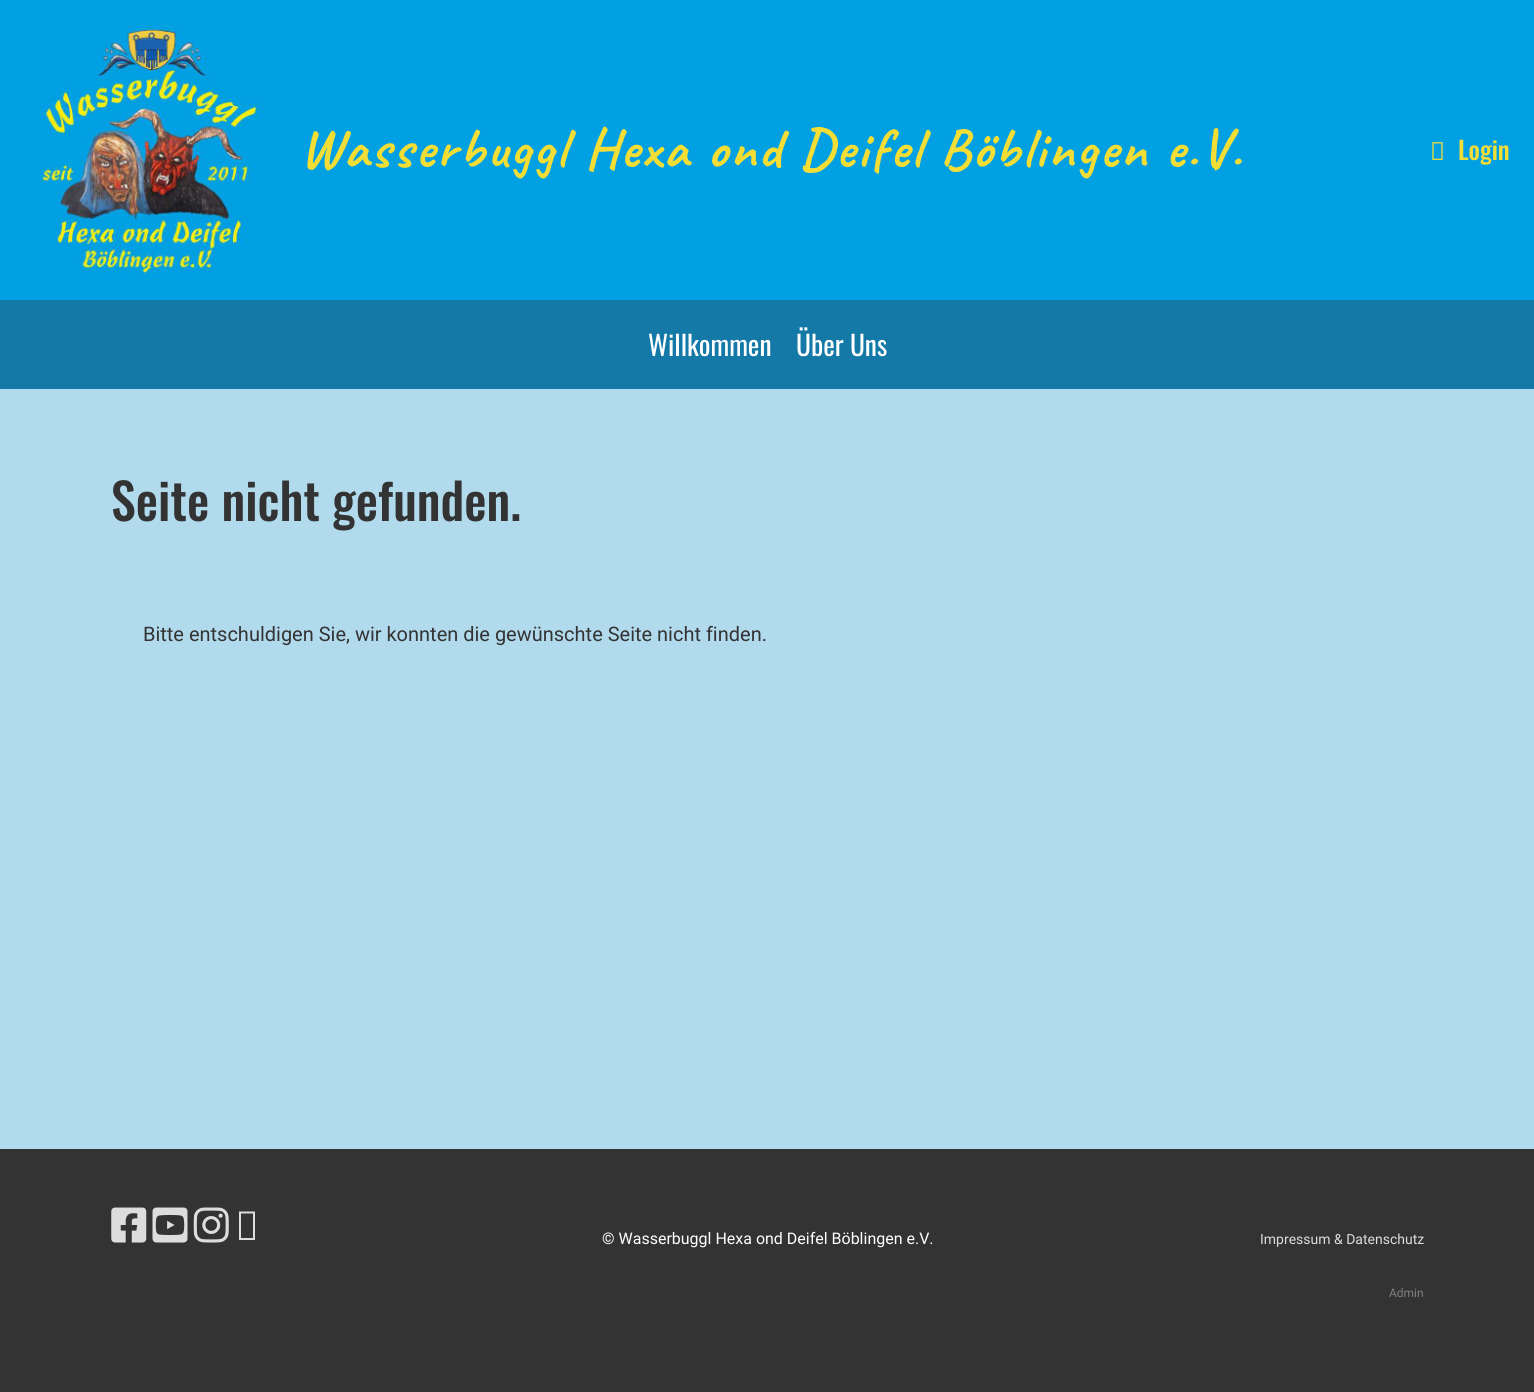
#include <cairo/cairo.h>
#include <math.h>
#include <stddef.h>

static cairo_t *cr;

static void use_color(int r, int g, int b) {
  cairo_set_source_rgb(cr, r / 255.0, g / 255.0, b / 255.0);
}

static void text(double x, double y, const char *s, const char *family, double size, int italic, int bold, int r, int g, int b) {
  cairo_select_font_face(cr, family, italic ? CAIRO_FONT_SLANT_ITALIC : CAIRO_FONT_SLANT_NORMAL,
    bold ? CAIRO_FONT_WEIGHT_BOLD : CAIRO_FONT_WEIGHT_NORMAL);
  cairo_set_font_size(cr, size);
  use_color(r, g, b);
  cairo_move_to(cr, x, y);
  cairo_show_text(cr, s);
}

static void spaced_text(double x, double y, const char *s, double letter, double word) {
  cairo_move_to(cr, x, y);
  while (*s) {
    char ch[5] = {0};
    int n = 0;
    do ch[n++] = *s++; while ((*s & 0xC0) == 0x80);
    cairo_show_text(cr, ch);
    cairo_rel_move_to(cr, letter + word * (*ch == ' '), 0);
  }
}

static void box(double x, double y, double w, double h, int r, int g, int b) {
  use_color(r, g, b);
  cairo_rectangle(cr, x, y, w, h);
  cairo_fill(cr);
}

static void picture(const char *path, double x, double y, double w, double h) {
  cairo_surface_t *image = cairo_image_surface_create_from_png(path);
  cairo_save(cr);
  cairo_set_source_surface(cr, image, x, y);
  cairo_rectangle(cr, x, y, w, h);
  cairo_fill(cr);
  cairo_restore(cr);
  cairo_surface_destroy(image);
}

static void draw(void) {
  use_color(177, 218, 237);
  cairo_paint(cr);
  box(0, 0, 1534, 300, 1, 160, 226);
  picture("img_01.png", 40, 25, 220, 250);
  picture("img_02.png", 1432, 142, 11, 18);
  box(0, 300, 1534, 89, 21, 121, 167);
  box(0, 1149, 1534, 243, 51, 51, 51);
  picture("img_03.png", 111, 1207, 36, 36);
  picture("img_04.png", 152, 1207, 36, 36);
  picture("img_05.png", 193, 1207, 36, 36);
  use_color(221, 221, 221);
  cairo_new_path(cr);
  cairo_move_to(cr, 239, 1240);
  cairo_line_to(cr, 239, 1211.5);
  cairo_line_to(cr, 255, 1211.5);
  cairo_line_to(cr, 255, 1240);
  cairo_close_path(cr);
  cairo_move_to(cr, 241, 1238);
  cairo_line_to(cr, 253, 1238);
  cairo_line_to(cr, 253, 1213.5);
  cairo_line_to(cr, 241, 1213.5);
  cairo_close_path(cr);
  cairo_fill(cr);
  cairo_select_font_face(cr, "Caveat", CAIRO_FONT_SLANT_NORMAL, CAIRO_FONT_WEIGHT_BOLD);
  cairo_set_font_size(cr, 56.25);
  use_color(244, 222, 53);
  spaced_text(300, 167, "Wasserbuggl Hexa ond Deifel Böblingen e.V.", 2.5, 0.5);
  text(1458, 160, "Login", "Oswald Medium", 25, 0, 0, 244, 222, 53);
  text(648, 356, "Willkommen", "Oswald", 27.5, 0, 0, 255, 255, 255);
  text(796, 356, "Über Uns", "Oswald", 27.5, 0, 0, 255, 255, 255);
  text(111, 521, "Seite nicht gefunden.", "Oswald Medium", 50, 0, 0, 51, 51, 51);
  text(143, 641, "Bitte entschuldigen Sie, wir konnten die gewünschte Seite nicht finden.", "Roboto", 20, 0, 0, 51, 51, 51);
  text(602, 1244, "© Wasserbuggl Hexa ond Deifel Böblingen e.V.", "Roboto", 16, 0, 0, 255, 255, 255);
  text(1260, 1244, "Impressum & Datenschutz", "Roboto", 14, 0, 0, 221, 221, 221);
  text(1389, 1297, "Admin", "Roboto", 12, 0, 0, 128, 128, 128);
}

int main(void) {
  cairo_surface_t *surface = cairo_image_surface_create(CAIRO_FORMAT_RGB24, 1534, 1392);
  cr = cairo_create(surface);
  cairo_font_options_t *options = cairo_font_options_create();
  cairo_font_options_set_hint_metrics(options, CAIRO_HINT_METRICS_OFF);
  cairo_font_options_set_hint_style(options, CAIRO_HINT_STYLE_NONE);
  cairo_set_font_options(cr, options);
  cairo_set_miter_limit(cr, 4);
  draw();
  cairo_surface_write_to_png(surface, "out.png");
  cairo_font_options_destroy(options);
  cairo_destroy(cr);
  cairo_surface_destroy(surface);
  return 0;
}
